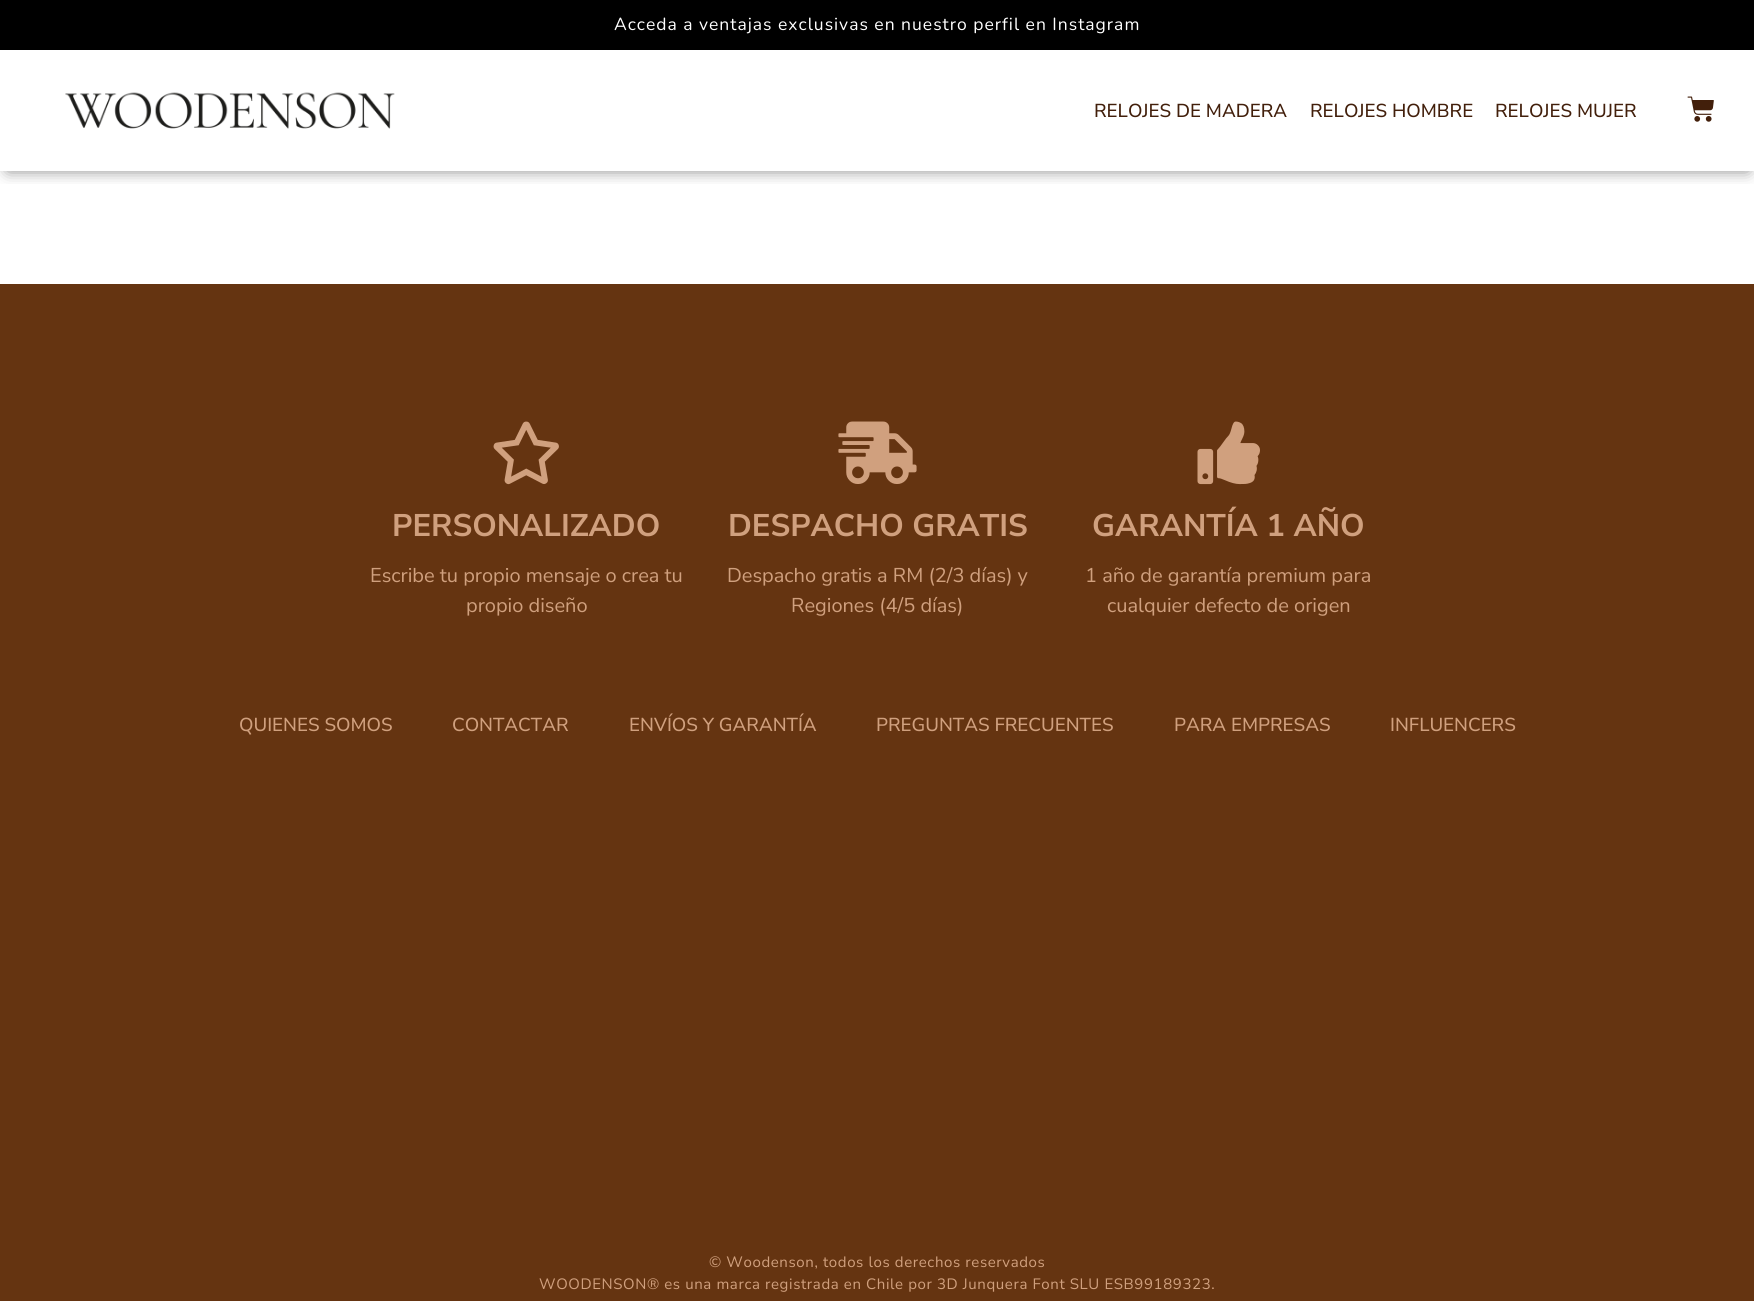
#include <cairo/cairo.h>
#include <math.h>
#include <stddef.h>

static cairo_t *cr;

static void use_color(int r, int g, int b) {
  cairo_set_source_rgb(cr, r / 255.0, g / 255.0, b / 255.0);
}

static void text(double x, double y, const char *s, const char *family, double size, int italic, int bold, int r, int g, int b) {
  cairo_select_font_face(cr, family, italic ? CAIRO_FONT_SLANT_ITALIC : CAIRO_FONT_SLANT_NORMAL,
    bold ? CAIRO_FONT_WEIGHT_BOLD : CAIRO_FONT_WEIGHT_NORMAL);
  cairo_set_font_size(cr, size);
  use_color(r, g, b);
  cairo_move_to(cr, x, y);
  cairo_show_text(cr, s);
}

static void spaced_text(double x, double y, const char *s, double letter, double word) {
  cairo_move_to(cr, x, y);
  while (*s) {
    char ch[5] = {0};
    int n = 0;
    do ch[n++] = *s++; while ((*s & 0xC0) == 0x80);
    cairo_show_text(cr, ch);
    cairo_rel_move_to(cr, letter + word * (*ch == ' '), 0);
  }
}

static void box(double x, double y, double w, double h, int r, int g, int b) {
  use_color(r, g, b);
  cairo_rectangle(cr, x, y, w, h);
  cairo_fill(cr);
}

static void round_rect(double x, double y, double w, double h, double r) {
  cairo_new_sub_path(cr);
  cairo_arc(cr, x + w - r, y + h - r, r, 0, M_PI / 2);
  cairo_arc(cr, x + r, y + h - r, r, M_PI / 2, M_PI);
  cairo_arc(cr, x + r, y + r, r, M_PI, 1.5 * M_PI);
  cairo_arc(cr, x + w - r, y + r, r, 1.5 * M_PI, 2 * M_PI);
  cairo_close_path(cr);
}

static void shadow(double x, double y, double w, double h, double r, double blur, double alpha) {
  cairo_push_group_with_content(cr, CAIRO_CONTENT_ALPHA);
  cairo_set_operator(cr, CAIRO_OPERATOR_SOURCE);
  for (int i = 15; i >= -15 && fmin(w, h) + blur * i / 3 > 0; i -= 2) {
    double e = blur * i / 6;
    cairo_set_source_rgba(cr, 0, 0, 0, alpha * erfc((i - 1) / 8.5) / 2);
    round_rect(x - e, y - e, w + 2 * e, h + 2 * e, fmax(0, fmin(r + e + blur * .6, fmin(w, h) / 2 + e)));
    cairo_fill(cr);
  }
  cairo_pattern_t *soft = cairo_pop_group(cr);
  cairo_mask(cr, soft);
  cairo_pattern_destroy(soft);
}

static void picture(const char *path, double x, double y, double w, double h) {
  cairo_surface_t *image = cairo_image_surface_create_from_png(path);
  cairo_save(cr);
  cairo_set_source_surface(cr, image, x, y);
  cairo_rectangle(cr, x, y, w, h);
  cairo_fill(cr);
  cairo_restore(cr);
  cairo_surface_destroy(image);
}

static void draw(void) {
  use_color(255, 255, 255);
  cairo_paint(cr);
  box(0, 0, 1754, 50, 0, 0, 0);
  cairo_save(cr);
  cairo_rectangle(cr, 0, 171, 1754, 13);
  cairo_clip(cr);
  use_color(0, 0, 0);
  shadow(8, 64, 1740, 106, 0, 8, 0.52);
  cairo_restore(cr);
  picture("img_01.png", 65, 92, 330, 37);
  picture("img_02.png", 1687, 96, 27, 26);
  box(0, 284, 1754, 1017, 101, 52, 17);
  picture("img_03.png", 493, 421, 66, 64);
  picture("img_04.png", 838, 421, 79, 63);
  picture("img_05.png", 1197, 421, 63, 64);
  cairo_select_font_face(cr, "Nunito", CAIRO_FONT_SLANT_NORMAL, CAIRO_FONT_WEIGHT_NORMAL);
  cairo_set_font_size(cr, 17.5);
  use_color(255, 255, 255);
  spaced_text(614, 30, "Acceda a ventajas exclusivas en nuestro perfil en Instagram", 1, 0);
  text(1094, 117, "RELOJES DE MADERA", "Nunito Sans Medium", 18.75, 0, 0, 66, 31, 11);
  text(1310, 117, "RELOJES HOMBRE", "Nunito Sans Medium", 18.75, 0, 0, 66, 31, 11);
  text(1495, 117, "RELOJES MUJER", "Nunito Sans Medium", 18.75, 0, 0, 66, 31, 11);
  text(392, 536, "PERSONALIZADO", "Nunito Sans", 31.25, 0, 1, 208, 160, 126);
  text(370, 582, "Escribe tu propio mensaje o crea tu", "Nunito Sans", 20, 0, 0, 208, 160, 126);
  text(466, 612, "propio diseño", "Nunito Sans", 20, 0, 0, 208, 160, 126);
  text(728, 536, "DESPACHO GRATIS", "Nunito Sans", 31.25, 0, 1, 208, 160, 126);
  text(727, 582, "Despacho gratis a RM (2/3 días) y", "Nunito Sans", 20, 0, 0, 208, 160, 126);
  text(791, 612, "Regiones (4/5 días)", "Nunito Sans", 20, 0, 0, 208, 160, 126);
  text(1092, 536, "GARANTÍA 1 AÑO", "Nunito Sans", 31.25, 0, 1, 208, 160, 126);
  text(1085, 582, "1 año de garantía premium para", "Nunito Sans", 20, 0, 0, 208, 160, 126);
  text(1107, 612, "cualquier defecto de origen", "Nunito Sans", 20, 0, 0, 208, 160, 126);
  text(239, 731, "QUIENES SOMOS", "Nunito Sans Medium", 18.75, 0, 0, 208, 160, 126);
  text(452, 731, "CONTACTAR", "Nunito Sans Medium", 18.75, 0, 0, 208, 160, 126);
  text(629, 731, "ENVÍOS Y GARANTÍA", "Nunito Sans Medium", 18.75, 0, 0, 208, 160, 126);
  text(876, 731, "PREGUNTAS FRECUENTES", "Nunito Sans Medium", 18.75, 0, 0, 208, 160, 126);
  text(1174, 731, "PARA EMPRESAS", "Nunito Sans Medium", 18.75, 0, 0, 208, 160, 126);
  text(1390, 731, "INFLUENCERS", "Nunito Sans Medium", 18.75, 0, 0, 208, 160, 126);
  cairo_select_font_face(cr, "Nunito Sans", CAIRO_FONT_SLANT_NORMAL, CAIRO_FONT_WEIGHT_NORMAL);
  cairo_set_font_size(cr, 15);
  spaced_text(709, 1267, "© Woodenson, todos los derechos reservados", 0.62, 0);
  spaced_text(539, 1289, "WOODENSON® es una marca registrada en Chile por 3D Junquera Font SLU ESB99189323.", 0.62, 0);
}

int main(void) {
  cairo_surface_t *surface = cairo_image_surface_create(CAIRO_FORMAT_RGB24, 1754, 1301);
  cr = cairo_create(surface);
  cairo_font_options_t *options = cairo_font_options_create();
  cairo_font_options_set_hint_metrics(options, CAIRO_HINT_METRICS_OFF);
  cairo_font_options_set_hint_style(options, CAIRO_HINT_STYLE_NONE);
  cairo_set_font_options(cr, options);
  cairo_set_miter_limit(cr, 4);
  draw();
  cairo_surface_write_to_png(surface, "out.png");
  cairo_font_options_destroy(options);
  cairo_destroy(cr);
  cairo_surface_destroy(surface);
  return 0;
}
